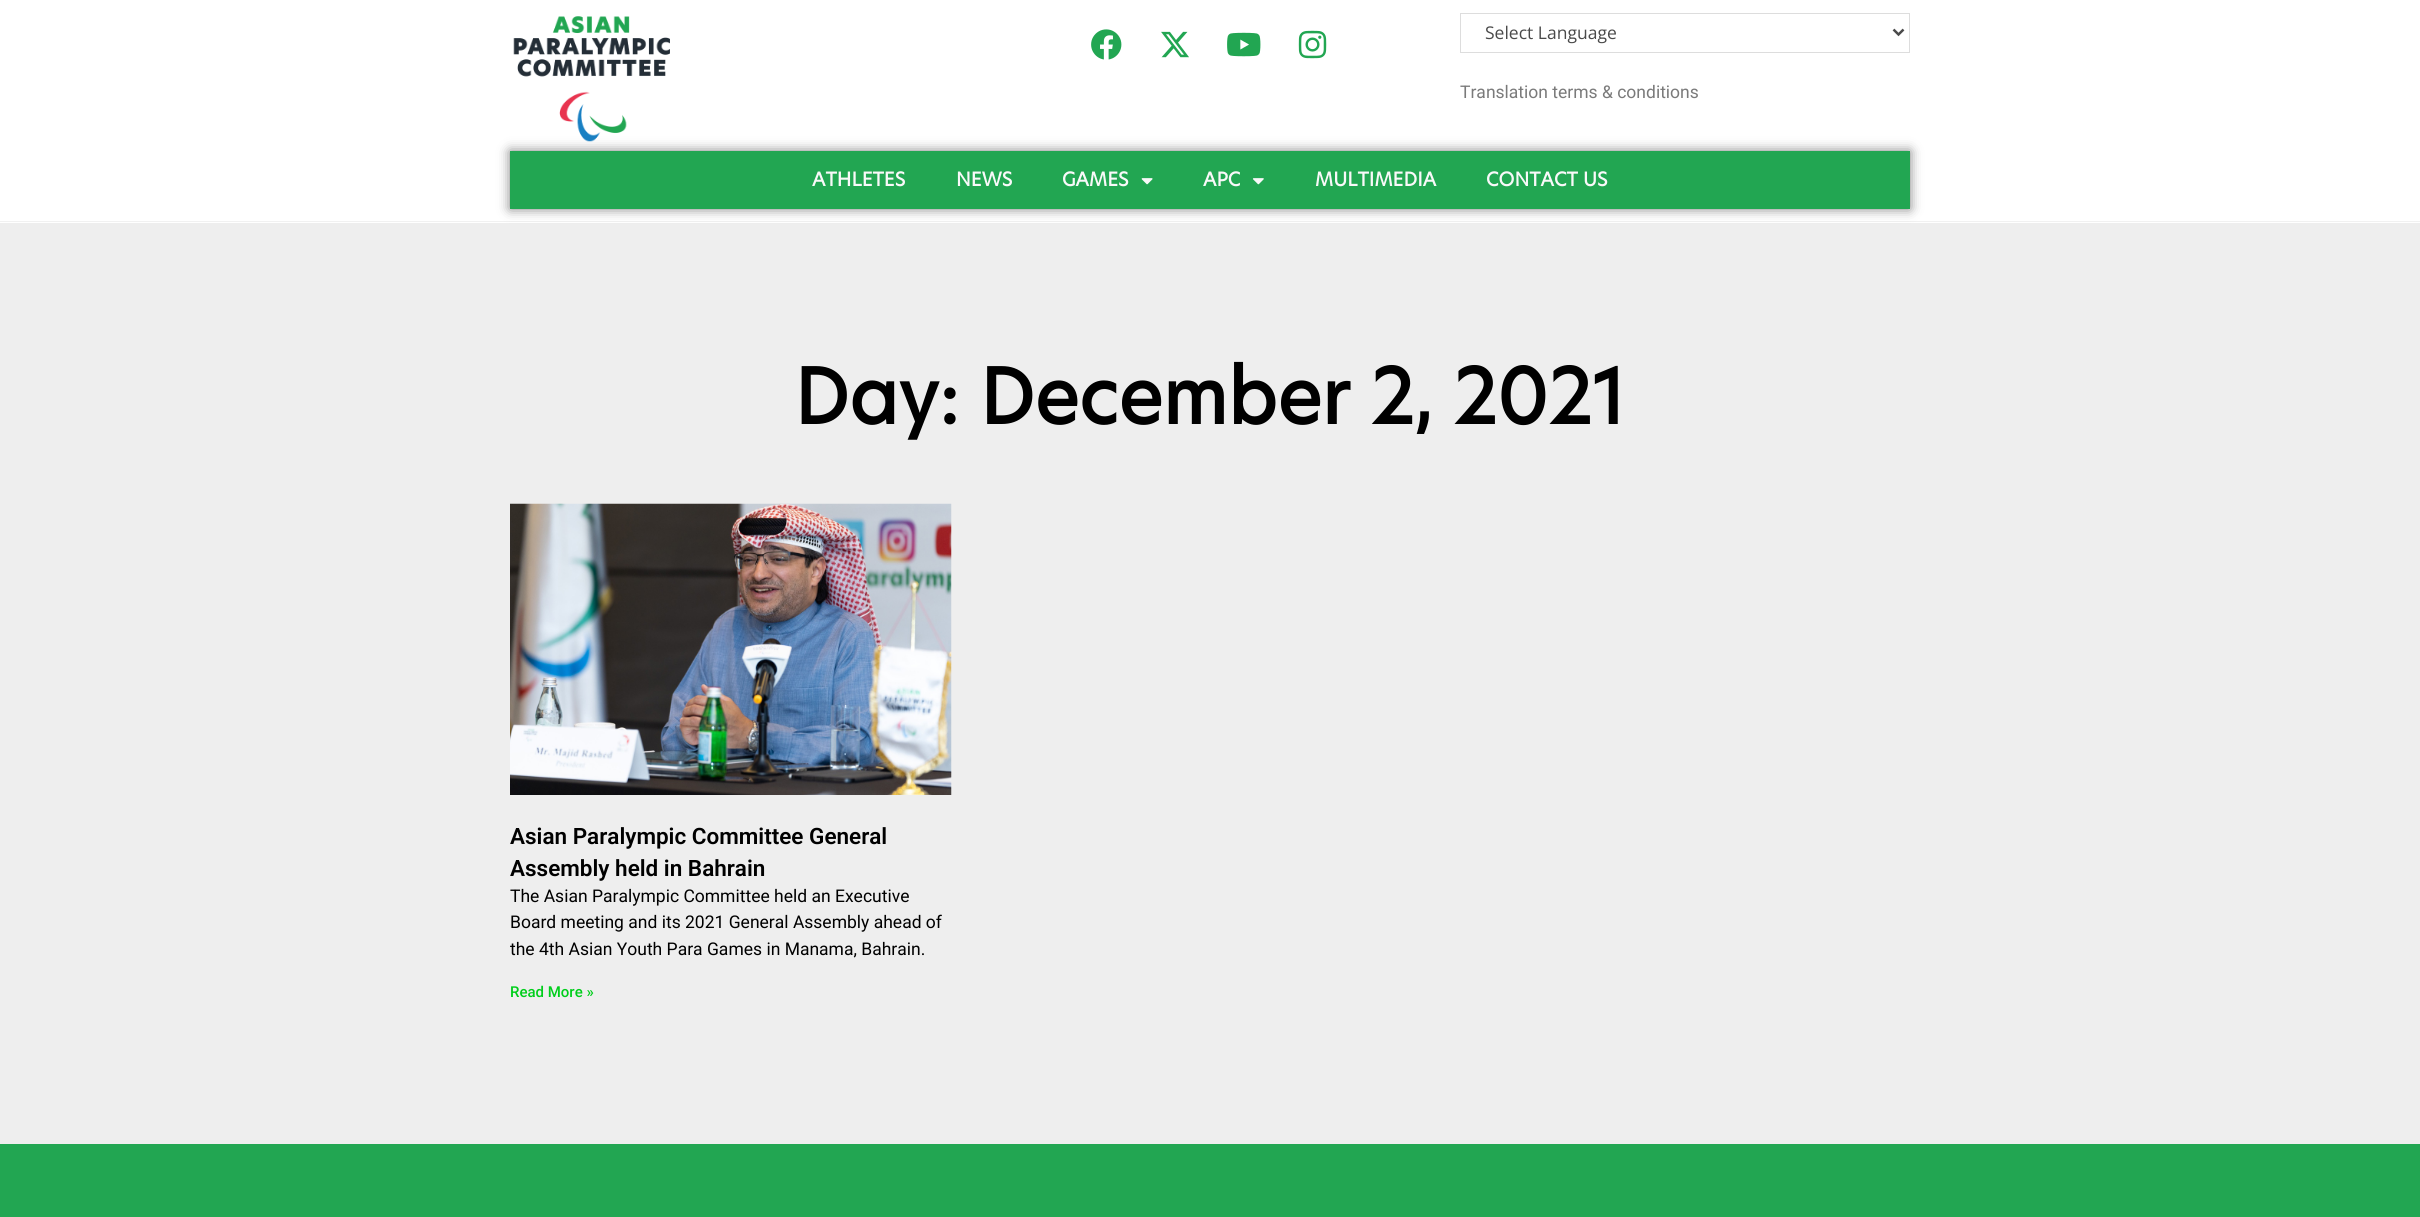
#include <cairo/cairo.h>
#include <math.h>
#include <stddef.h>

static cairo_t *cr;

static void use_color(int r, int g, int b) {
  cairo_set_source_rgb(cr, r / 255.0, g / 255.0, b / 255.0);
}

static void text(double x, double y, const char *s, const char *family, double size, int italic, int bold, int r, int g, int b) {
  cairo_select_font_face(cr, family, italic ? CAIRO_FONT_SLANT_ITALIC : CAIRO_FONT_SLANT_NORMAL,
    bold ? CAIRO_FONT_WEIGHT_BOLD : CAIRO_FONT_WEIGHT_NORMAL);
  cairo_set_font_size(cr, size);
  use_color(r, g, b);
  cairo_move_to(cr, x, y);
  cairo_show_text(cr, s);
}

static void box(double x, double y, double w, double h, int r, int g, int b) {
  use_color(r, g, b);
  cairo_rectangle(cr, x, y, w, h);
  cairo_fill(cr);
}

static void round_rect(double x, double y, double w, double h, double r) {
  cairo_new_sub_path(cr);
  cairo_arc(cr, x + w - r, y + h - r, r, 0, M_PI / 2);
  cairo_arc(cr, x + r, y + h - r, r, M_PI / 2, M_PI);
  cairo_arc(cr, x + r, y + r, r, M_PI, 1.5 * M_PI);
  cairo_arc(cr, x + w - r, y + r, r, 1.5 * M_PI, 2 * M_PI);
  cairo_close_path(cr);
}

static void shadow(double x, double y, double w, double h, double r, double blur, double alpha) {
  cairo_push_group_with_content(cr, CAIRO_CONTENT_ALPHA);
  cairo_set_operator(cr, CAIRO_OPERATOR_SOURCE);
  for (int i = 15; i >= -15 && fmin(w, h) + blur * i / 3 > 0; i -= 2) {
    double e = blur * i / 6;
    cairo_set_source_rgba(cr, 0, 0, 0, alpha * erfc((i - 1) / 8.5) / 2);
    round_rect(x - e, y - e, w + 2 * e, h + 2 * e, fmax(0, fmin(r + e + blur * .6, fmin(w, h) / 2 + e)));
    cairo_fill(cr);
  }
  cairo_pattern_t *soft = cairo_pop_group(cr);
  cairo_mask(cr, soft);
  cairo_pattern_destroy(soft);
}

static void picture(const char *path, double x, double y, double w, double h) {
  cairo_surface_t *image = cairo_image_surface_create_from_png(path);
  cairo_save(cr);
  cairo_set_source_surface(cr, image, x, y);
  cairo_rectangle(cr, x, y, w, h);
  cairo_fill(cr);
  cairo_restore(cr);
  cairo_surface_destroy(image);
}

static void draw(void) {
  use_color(255, 255, 255);
  cairo_paint(cr);
  box(0, 221, 2420, 1, 241, 241, 241);
  picture("img_01.png", 513, 16, 157, 126);
  picture("img_02.png", 1091, 29, 31, 31);
  picture("img_03.png", 1161, 31, 28, 27);
  picture("img_04.png", 1227, 32, 34, 25);
  picture("img_05.png", 1298, 30, 29, 29);
  cairo_rectangle(cr, 1460.5, 13.5, 449, 39);
  use_color(221, 221, 221);
  cairo_set_line_width(cr, 1);
  cairo_stroke(cr);
  cairo_new_path(cr);
  cairo_move_to(cr, 1893.5, 29.5);
  cairo_line_to(cr, 1898.5, 34.5);
  cairo_line_to(cr, 1903.5, 29.5);
  use_color(74, 74, 74);
  cairo_set_line_width(cr, 2.5);
  cairo_stroke(cr);
  box(0, 223, 2420, 921, 238, 238, 238);
  use_color(0, 0, 0);
  shadow(510, 151, 1400, 58, 0, 6, 0.5);
  box(510, 151, 1400, 58, 34, 166, 82);
  picture("img_06.png", 1141, 178, 12, 7);
  picture("img_07.png", 1252, 178, 12, 7);
  picture("img_08.png", 510, 503, 442, 292);
  box(0, 1144, 2420, 73, 34, 166, 82);
  text(1485, 39, "Select Language", "Open Sans", 17.5, 0, 0, 74, 74, 74);
  text(1460, 98, "Translation terms & conditions", "Roboto", 17.5, 0, 0, 122, 122, 122);
  text(812, 186, "ATHLETES", "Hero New", 18.75, 0, 1, 249, 249, 249);
  text(956, 186, "NEWS", "Hero New", 18.75, 0, 1, 249, 249, 249);
  text(1062, 186, "GAMES", "Hero New", 18.75, 0, 1, 249, 249, 249);
  text(1203, 186, "APC", "Hero New", 18.75, 0, 1, 249, 249, 249);
  text(1315, 186, "MULTIMEDIA", "Hero New", 18.75, 0, 1, 249, 249, 249);
  text(1486, 186, "CONTACT US", "Hero New", 18.75, 0, 1, 249, 249, 249);
  text(794, 424, "Day: December 2, 2021", "Hero New", 75, 0, 1, 0, 0, 0);
  text(510, 844, "Asian Paralympic Committee General", "Roboto SemiBold", 22.5, 0, 0, 0, 0, 0);
  text(510, 876, "Assembly held in Bahrain", "Roboto SemiBold", 22.5, 0, 0, 0, 0, 0);
  text(510, 902, "The Asian Paralympic Committee held an Executive", "Roboto", 17.5, 0, 0, 0, 0, 0);
  text(510, 928, "Board meeting and its 2021 General Assembly ahead of", "Roboto", 17.5, 0, 0, 0, 0, 0);
  text(510, 955, "the 4th Asian Youth Para Games in Manama, Bahrain.", "Roboto", 17.5, 0, 0, 0, 0, 0);
  text(510, 997, "Read More »", "Roboto Medium", 15, 0, 0, 0, 206, 27);
}

int main(void) {
  cairo_surface_t *surface = cairo_image_surface_create(CAIRO_FORMAT_RGB24, 2420, 1217);
  cr = cairo_create(surface);
  cairo_font_options_t *options = cairo_font_options_create();
  cairo_font_options_set_hint_metrics(options, CAIRO_HINT_METRICS_OFF);
  cairo_font_options_set_hint_style(options, CAIRO_HINT_STYLE_NONE);
  cairo_set_font_options(cr, options);
  cairo_set_miter_limit(cr, 4);
  draw();
  cairo_surface_write_to_png(surface, "out.png");
  cairo_font_options_destroy(options);
  cairo_destroy(cr);
  cairo_surface_destroy(surface);
  return 0;
}
